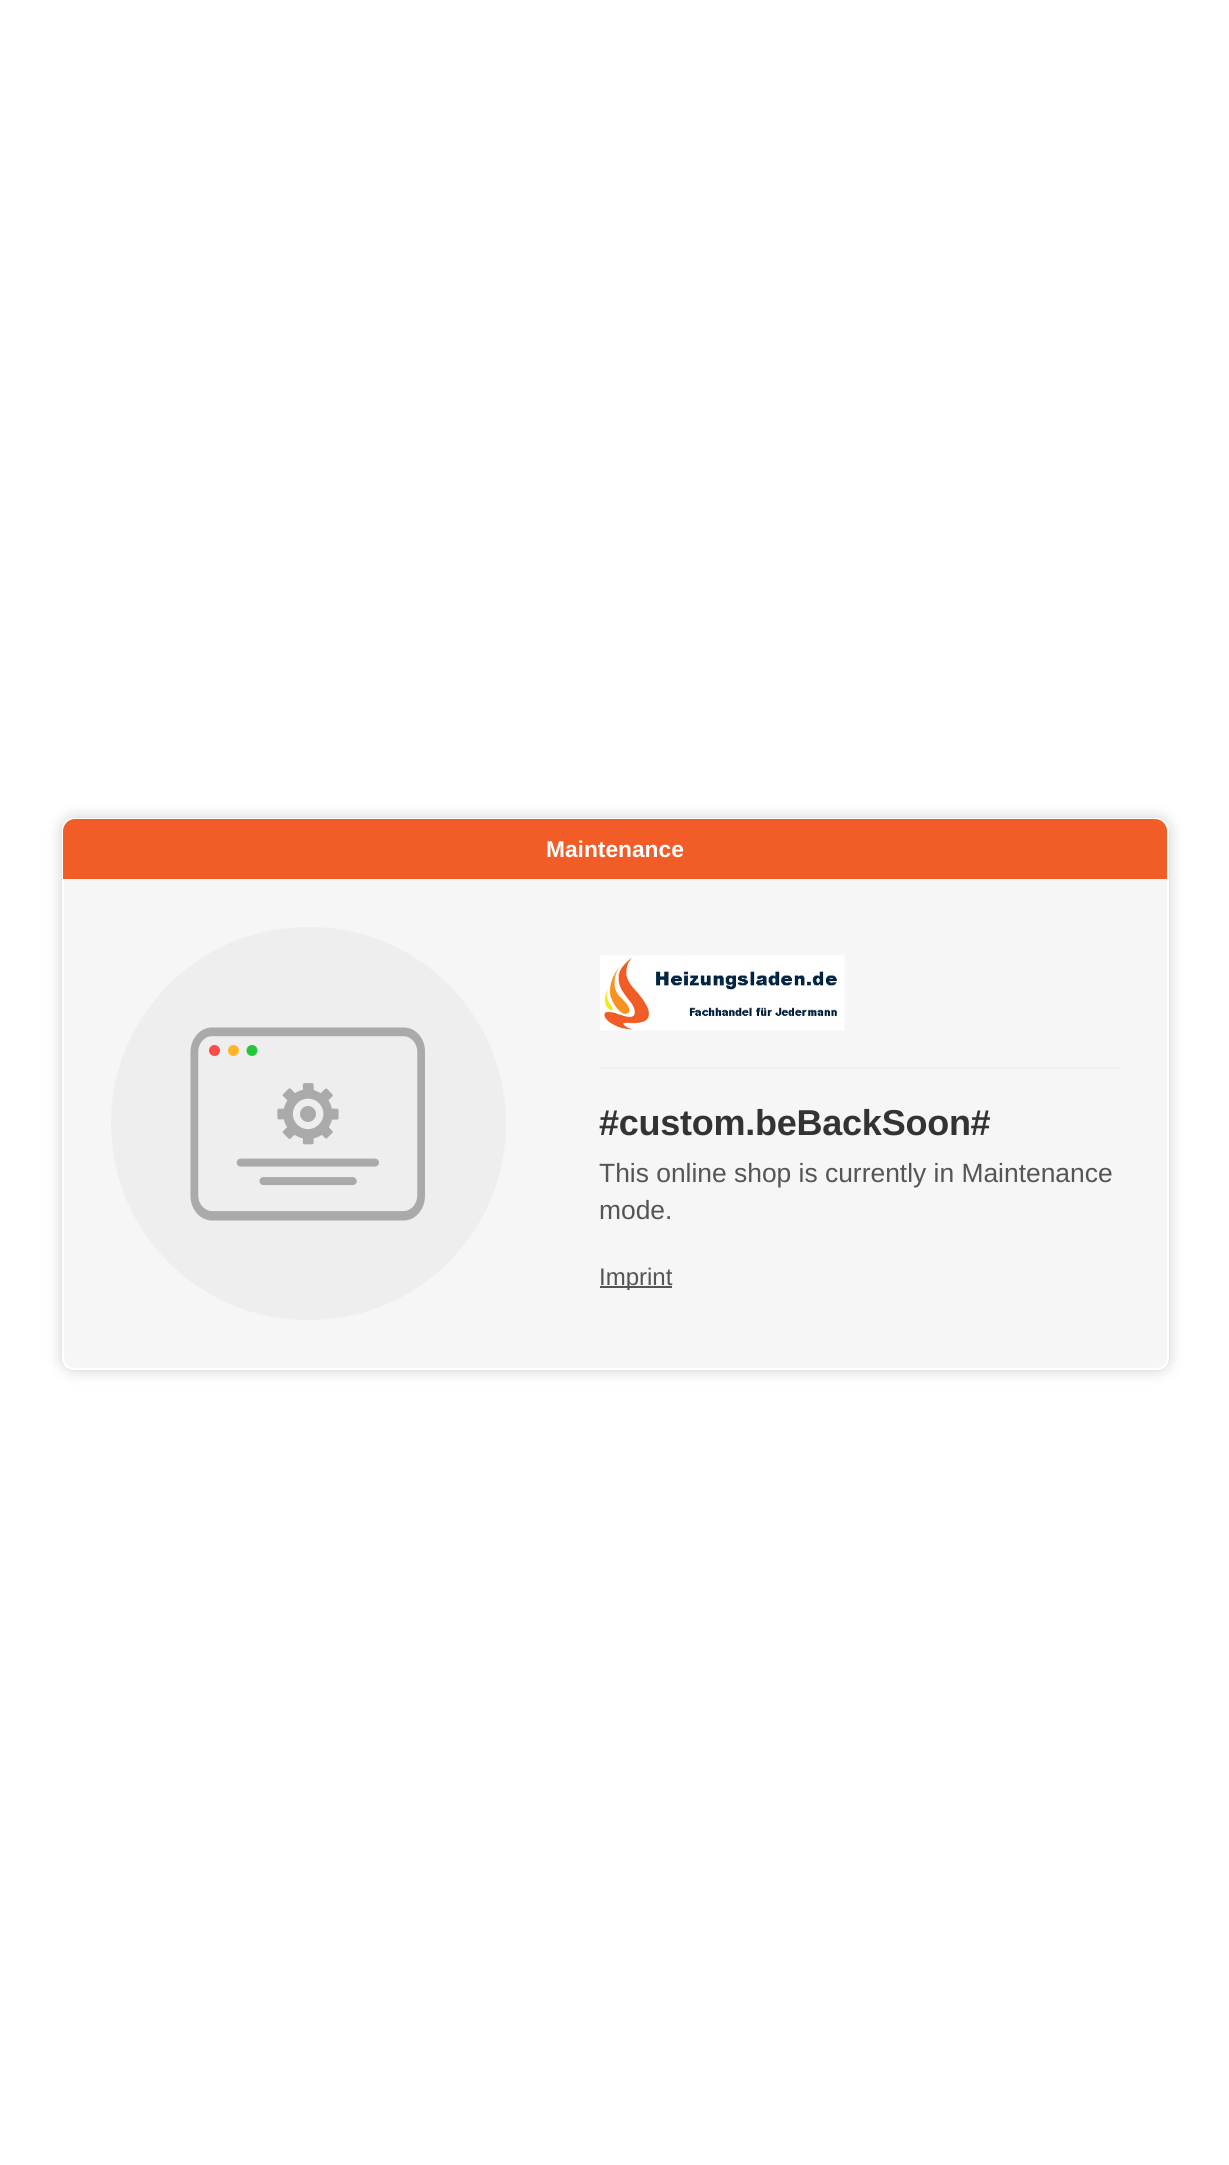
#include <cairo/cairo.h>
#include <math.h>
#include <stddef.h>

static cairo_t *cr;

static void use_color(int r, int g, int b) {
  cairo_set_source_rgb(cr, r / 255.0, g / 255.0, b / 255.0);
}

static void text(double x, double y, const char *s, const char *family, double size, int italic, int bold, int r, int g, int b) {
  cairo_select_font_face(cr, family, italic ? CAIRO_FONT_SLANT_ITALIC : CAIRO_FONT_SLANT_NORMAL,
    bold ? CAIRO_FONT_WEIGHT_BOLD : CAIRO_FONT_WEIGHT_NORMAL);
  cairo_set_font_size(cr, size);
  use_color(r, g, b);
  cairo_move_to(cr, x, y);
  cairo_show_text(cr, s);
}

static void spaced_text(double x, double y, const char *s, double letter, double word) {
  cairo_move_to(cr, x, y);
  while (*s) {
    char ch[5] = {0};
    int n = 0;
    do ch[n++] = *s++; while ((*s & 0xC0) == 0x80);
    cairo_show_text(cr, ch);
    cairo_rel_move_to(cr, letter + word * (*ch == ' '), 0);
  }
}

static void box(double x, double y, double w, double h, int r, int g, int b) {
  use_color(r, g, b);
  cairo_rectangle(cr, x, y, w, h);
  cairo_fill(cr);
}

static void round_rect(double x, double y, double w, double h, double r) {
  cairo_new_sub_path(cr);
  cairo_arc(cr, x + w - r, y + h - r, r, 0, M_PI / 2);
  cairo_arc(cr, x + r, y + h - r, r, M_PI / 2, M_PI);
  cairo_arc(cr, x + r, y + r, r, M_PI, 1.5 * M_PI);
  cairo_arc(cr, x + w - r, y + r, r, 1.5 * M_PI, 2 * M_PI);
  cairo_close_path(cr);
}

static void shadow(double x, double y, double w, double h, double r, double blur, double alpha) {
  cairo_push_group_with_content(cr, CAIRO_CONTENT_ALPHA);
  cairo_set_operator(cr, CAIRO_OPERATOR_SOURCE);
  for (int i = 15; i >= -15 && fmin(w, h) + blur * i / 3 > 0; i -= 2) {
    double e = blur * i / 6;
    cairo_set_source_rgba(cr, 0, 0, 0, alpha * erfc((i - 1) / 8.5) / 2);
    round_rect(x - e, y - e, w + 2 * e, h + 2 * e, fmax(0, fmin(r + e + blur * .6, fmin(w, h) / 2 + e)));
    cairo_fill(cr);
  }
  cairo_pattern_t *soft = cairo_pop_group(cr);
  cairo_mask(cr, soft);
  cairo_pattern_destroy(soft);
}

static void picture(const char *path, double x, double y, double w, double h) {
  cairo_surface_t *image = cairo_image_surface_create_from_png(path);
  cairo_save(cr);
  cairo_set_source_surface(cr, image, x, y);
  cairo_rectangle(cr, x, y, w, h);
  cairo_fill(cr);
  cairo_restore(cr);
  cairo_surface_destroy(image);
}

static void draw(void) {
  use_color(255, 255, 255);
  cairo_paint(cr);
  use_color(0, 0, 0);
  shadow(62, 818, 1107, 552, 12, 7.5, 0.2);
  use_color(246, 246, 246);
  round_rect(63, 819, 1105, 550, 11);
  cairo_fill_preserve(cr);
  use_color(255, 255, 255);
  cairo_stroke(cr);
  use_color(242, 92, 39);
  cairo_new_path(cr);
  cairo_move_to(cr, 75, 819);
  cairo_line_to(cr, 1155, 819);
  cairo_curve_to(cr, 1161.5, 819, 1167, 824.5, 1167, 831);
  cairo_line_to(cr, 1167, 879);
  cairo_line_to(cr, 63, 879);
  cairo_line_to(cr, 63, 831);
  cairo_curve_to(cr, 63, 824.5, 68.5, 819, 75, 819);
  cairo_close_path(cr);
  cairo_fill(cr);
  use_color(238, 238, 238);
  round_rect(111, 927, 395, 393, 196.5);
  cairo_fill(cr);
  picture("img_01.png", 190, 1027, 235, 194);
  box(600, 1067, 519, 2, 238, 238, 238);
  picture("img_02.png", 600, 955, 245, 76);
  box(600, 1286, 72, 2, 85, 85, 85);
  text(546, 857, "Maintenance", "Liberation Sans", 22.75, 0, 1, 255, 255, 255);
  cairo_set_font_size(cr, 36);
  use_color(51, 51, 51);
  spaced_text(599, 1135, "#custom.beBackSoon#", -0.25, 0);
  text(599, 1182, "This online shop is currently in Maintenance", "Liberation Sans", 26.4, 0, 0, 85, 85, 85);
  text(599, 1219, "mode.", "Liberation Sans", 26.4, 0, 0, 85, 85, 85);
  text(599, 1285, "Imprint", "Liberation Sans", 24, 0, 0, 85, 85, 85);
}

int main(void) {
  cairo_surface_t *surface = cairo_image_surface_create(CAIRO_FORMAT_RGB24, 1229, 2165);
  cr = cairo_create(surface);
  cairo_font_options_t *options = cairo_font_options_create();
  cairo_font_options_set_hint_metrics(options, CAIRO_HINT_METRICS_OFF);
  cairo_font_options_set_hint_style(options, CAIRO_HINT_STYLE_NONE);
  cairo_set_font_options(cr, options);
  cairo_set_miter_limit(cr, 4);
  draw();
  cairo_surface_write_to_png(surface, "out.png");
  cairo_font_options_destroy(options);
  cairo_destroy(cr);
  cairo_surface_destroy(surface);
  return 0;
}
